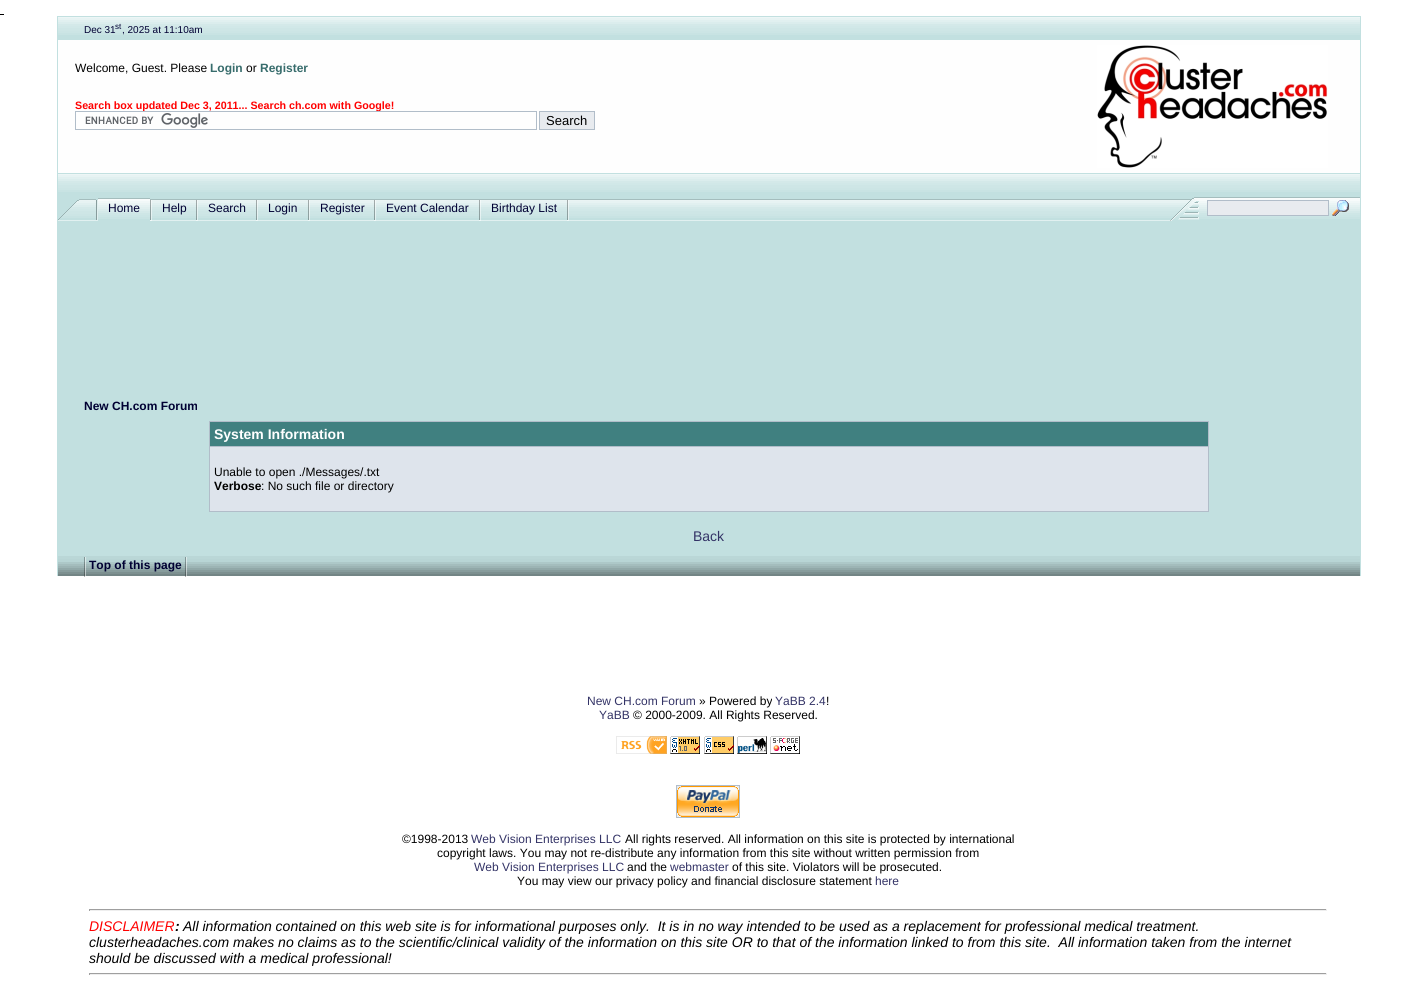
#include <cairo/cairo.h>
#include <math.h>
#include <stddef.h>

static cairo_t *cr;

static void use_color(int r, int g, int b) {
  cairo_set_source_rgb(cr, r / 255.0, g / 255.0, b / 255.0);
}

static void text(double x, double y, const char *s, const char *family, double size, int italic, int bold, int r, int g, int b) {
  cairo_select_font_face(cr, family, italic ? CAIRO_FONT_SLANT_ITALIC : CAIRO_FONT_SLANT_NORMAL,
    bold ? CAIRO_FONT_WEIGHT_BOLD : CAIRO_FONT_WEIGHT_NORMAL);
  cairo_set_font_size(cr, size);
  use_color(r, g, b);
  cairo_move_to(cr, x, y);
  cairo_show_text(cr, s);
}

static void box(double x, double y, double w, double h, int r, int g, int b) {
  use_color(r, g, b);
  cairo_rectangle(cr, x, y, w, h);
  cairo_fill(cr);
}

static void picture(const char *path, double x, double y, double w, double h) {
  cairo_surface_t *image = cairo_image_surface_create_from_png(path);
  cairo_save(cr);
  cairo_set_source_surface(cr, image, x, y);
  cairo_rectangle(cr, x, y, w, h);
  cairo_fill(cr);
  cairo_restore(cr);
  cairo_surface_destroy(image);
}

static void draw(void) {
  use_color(255, 255, 255);
  cairo_paint(cr);
  box(0, 14, 4, 1, 0, 0, 0);
  box(57, 16, 1304, 560, 194, 224, 224);
  picture("img_01.png", 58, 17, 1302, 18);
  box(58, 40, 1302, 133, 254, 254, 254);
  picture("img_02.png", 1097, 45, 231, 123);
  picture("img_03.png", 85, 113, 123, 15);
  use_color(232, 235, 239);
  cairo_rectangle(cr, 539.5, 111.5, 55, 18);
  cairo_fill_preserve(cr);
  use_color(177, 189, 201);
  cairo_set_line_width(cr, 1);
  cairo_stroke(cr);
  picture("img_01.png", 58, 174, 1302, 18);
  picture("img_04.png", 58, 199, 40, 22);
  picture("img_05.png", 150, 199, 957, 22);
  picture("img_06.png", 98, 198, 52, 21);
  picture("img_07.png", 150, 200, 2, 21);
  box(152, 199, 44, 22, 194, 224, 224);
  picture("img_08.png", 152, 199, 44, 22);
  picture("img_07.png", 196, 200, 2, 21);
  box(198, 199, 58, 22, 194, 224, 224);
  picture("img_09.png", 198, 199, 58, 22);
  picture("img_07.png", 256, 200, 2, 21);
  box(258, 199, 50, 22, 194, 224, 224);
  picture("img_10.png", 258, 199, 50, 22);
  picture("img_07.png", 308, 200, 2, 21);
  box(310, 199, 64, 22, 194, 224, 224);
  picture("img_11.png", 310, 199, 64, 22);
  picture("img_07.png", 374, 200, 2, 21);
  box(376, 199, 103, 22, 194, 224, 224);
  picture("img_12.png", 376, 199, 103, 22);
  picture("img_07.png", 479, 200, 2, 21);
  box(481, 199, 86, 22, 194, 224, 224);
  picture("img_13.png", 481, 199, 86, 22);
  picture("img_07.png", 567, 200, 2, 21);
  picture("img_14.png", 1107, 199, 8, 22);
  picture("img_15.png", 1115, 199, 40, 22);
  picture("img_16.png", 1155, 197, 45, 24);
  picture("img_17.png", 1200, 197, 160, 22);
  use_color(232, 235, 239);
  cairo_rectangle(cr, 1207.5, 200.5, 121, 15);
  cairo_fill_preserve(cr);
  use_color(177, 189, 201);
  cairo_stroke(cr);
  picture("img_18.png", 1332, 200, 17, 16);
  box(209, 421, 1000, 91, 177, 189, 201);
  box(210, 422, 998, 24, 64, 128, 128);
  box(210, 447, 998, 64, 222, 228, 236);
  picture("img_19.png", 58, 556, 1302, 20);
  picture("img_20.png", 84, 557, 2, 20);
  picture("img_20.png", 185, 557, 2, 20);
  picture("img_21.png", 616, 736, 51, 18);
  picture("img_22.png", 670, 736, 30, 18);
  picture("img_23.png", 704, 736, 30, 18);
  picture("img_24.png", 737, 736, 30, 18);
  picture("img_25.png", 770, 736, 30, 18);
  use_color(232, 235, 239);
  cairo_rectangle(cr, 676.5, 785.5, 63, 32);
  cairo_fill_preserve(cr);
  use_color(177, 189, 201);
  cairo_stroke(cr);
  picture("img_26.png", 677, 786, 62, 31);
  box(89, 909, 1238, 1, 159, 159, 159);
  box(1326, 909, 1, 2, 238, 238, 238);
  box(89, 910, 1238, 1, 238, 238, 238);
  box(89, 909, 1, 2, 159, 159, 159);
  box(89, 973, 1238, 1, 159, 159, 159);
  box(1326, 973, 1, 2, 238, 238, 238);
  box(89, 974, 1238, 1, 238, 238, 238);
  box(89, 973, 1, 2, 159, 159, 159);
  text(84, 33, "Dec 31", "Liberation Sans", 10, 0, 0, 0, 0, 51);
  text(115, 29, "st", "Liberation Sans", 8, 0, 0, 0, 0, 51);
  text(122, 33, ", 2025 at 11:10am", "Liberation Sans", 10, 0, 0, 0, 0, 51);
  text(75, 72, "Welcome, Guest. Please", "Liberation Sans", 12, 0, 0, 0, 0, 0);
  text(210, 72, "Login", "Liberation Sans", 12, 0, 1, 55, 108, 108);
  text(246, 72, "or", "Liberation Sans", 12, 0, 0, 0, 0, 0);
  text(260, 72, "Register", "Liberation Sans", 12, 0, 1, 55, 108, 108);
  text(75, 109, "Search box updated Dec 3, 2011... Search ch.com with Google!", "Liberation Sans", 10.7, 0, 1, 255, 0, 0);
  cairo_rectangle(cr, 75.5, 111.5, 461, 18);
  use_color(177, 189, 201);
  cairo_stroke(cr);
  text(546, 125, "Search", "Liberation Sans", 13, 0, 0, 0, 0, 0);
  text(108, 212, "Home", "Liberation Sans", 12, 0, 0, 0, 0, 51);
  text(162, 212, "Help", "Liberation Sans", 12, 0, 0, 0, 0, 51);
  text(208, 212, "Search", "Liberation Sans", 12, 0, 0, 0, 0, 51);
  text(268, 212, "Login", "Liberation Sans", 12, 0, 0, 0, 0, 51);
  text(320, 212, "Register", "Liberation Sans", 12, 0, 0, 0, 0, 51);
  text(386, 212, "Event Calendar", "Liberation Sans", 12, 0, 0, 0, 0, 51);
  text(491, 212, "Birthday List", "Liberation Sans", 12, 0, 0, 0, 0, 51);
  text(84, 410, "New CH.com Forum", "Liberation Sans", 12, 0, 1, 0, 0, 51);
  text(214, 439, "System Information", "Liberation Sans", 14, 0, 1, 255, 255, 255);
  text(214, 476, "Unable to open ./Messages/.txt", "Liberation Sans", 12, 0, 0, 0, 0, 0);
  text(214, 490, "Verbose", "Liberation Sans", 12, 0, 1, 0, 0, 0);
  text(261, 490, ": No such file or directory", "Liberation Sans", 12, 0, 0, 0, 0, 0);
  text(693, 541, "Back", "Liberation Sans", 14, 0, 0, 51, 51, 102);
  text(89, 569, "Top of this page", "Liberation Sans", 12, 0, 1, 0, 0, 51);
  text(587, 705, "New CH.com Forum", "Liberation Sans", 12, 0, 0, 51, 51, 102);
  text(699, 705, "» Powered by", "Liberation Sans", 12, 0, 0, 0, 0, 0);
  text(775, 705, "YaBB 2.4", "Liberation Sans", 12, 0, 0, 51, 51, 102);
  text(826, 705, "!", "Liberation Sans", 12, 0, 0, 0, 0, 0);
  text(599, 719, "YaBB", "Liberation Sans", 12, 0, 0, 51, 51, 102);
  text(633, 719, "© 2000-2009. All Rights Reserved.", "Liberation Sans", 12, 0, 0, 0, 0, 0);
  text(402, 843, "©1998-2013", "Liberation Sans", 12, 0, 0, 0, 0, 0);
  text(471, 843, "Web Vision Enterprises LLC", "Liberation Sans", 12, 0, 0, 51, 51, 102);
  text(625, 843, "All rights reserved. All information on this site is protected by international", "Liberation Sans", 12, 0, 0, 0, 0, 0);
  text(437, 857, "copyright laws. You may not re-distribute any information from this site without written permission from", "Liberation Sans", 12, 0, 0, 0, 0, 0);
  text(474, 871, "Web Vision Enterprises LLC", "Liberation Sans", 12, 0, 0, 51, 51, 102);
  text(627, 871, "and the", "Liberation Sans", 12, 0, 0, 0, 0, 0);
  text(670, 871, "webmaster", "Liberation Sans", 12, 0, 0, 51, 51, 102);
  text(732, 871, "of this site. Violators will be prosecuted.", "Liberation Sans", 12, 0, 0, 0, 0, 0);
  text(517, 885, "You may view our privacy policy and financial disclosure statement", "Liberation Sans", 12, 0, 0, 0, 0, 0);
  text(875, 885, "here", "Liberation Sans", 12, 0, 0, 51, 51, 102);
  text(89, 931, "DISCLAIMER", "Liberation Sans", 14, 1, 0, 255, 0, 0);
  text(175, 931, ":", "Liberation Sans", 14, 1, 1, 0, 0, 0);
  text(183, 931, "All information contained on this web site is for informational purposes only.  It is in no way intended to be used as a replacement for professional medical treatment.", "Liberation Sans", 14, 1, 0, 0, 0, 0);
  text(89, 947, "clusterheadaches.com makes no claims as to the scientific/clinical validity of the information on this site OR to that of the information linked to from this site.  All information taken from the internet", "Liberation Sans", 14, 1, 0, 0, 0, 0);
  text(89, 963, "should be discussed with a medical professional!", "Liberation Sans", 14, 1, 0, 0, 0, 0);
}

int main(void) {
  cairo_surface_t *surface = cairo_image_surface_create(CAIRO_FORMAT_RGB24, 1416, 1003);
  cr = cairo_create(surface);
  cairo_font_options_t *options = cairo_font_options_create();
  cairo_font_options_set_hint_metrics(options, CAIRO_HINT_METRICS_OFF);
  cairo_font_options_set_hint_style(options, CAIRO_HINT_STYLE_NONE);
  cairo_set_font_options(cr, options);
  cairo_set_miter_limit(cr, 4);
  draw();
  cairo_surface_write_to_png(surface, "out.png");
  cairo_font_options_destroy(options);
  cairo_destroy(cr);
  cairo_surface_destroy(surface);
  return 0;
}
